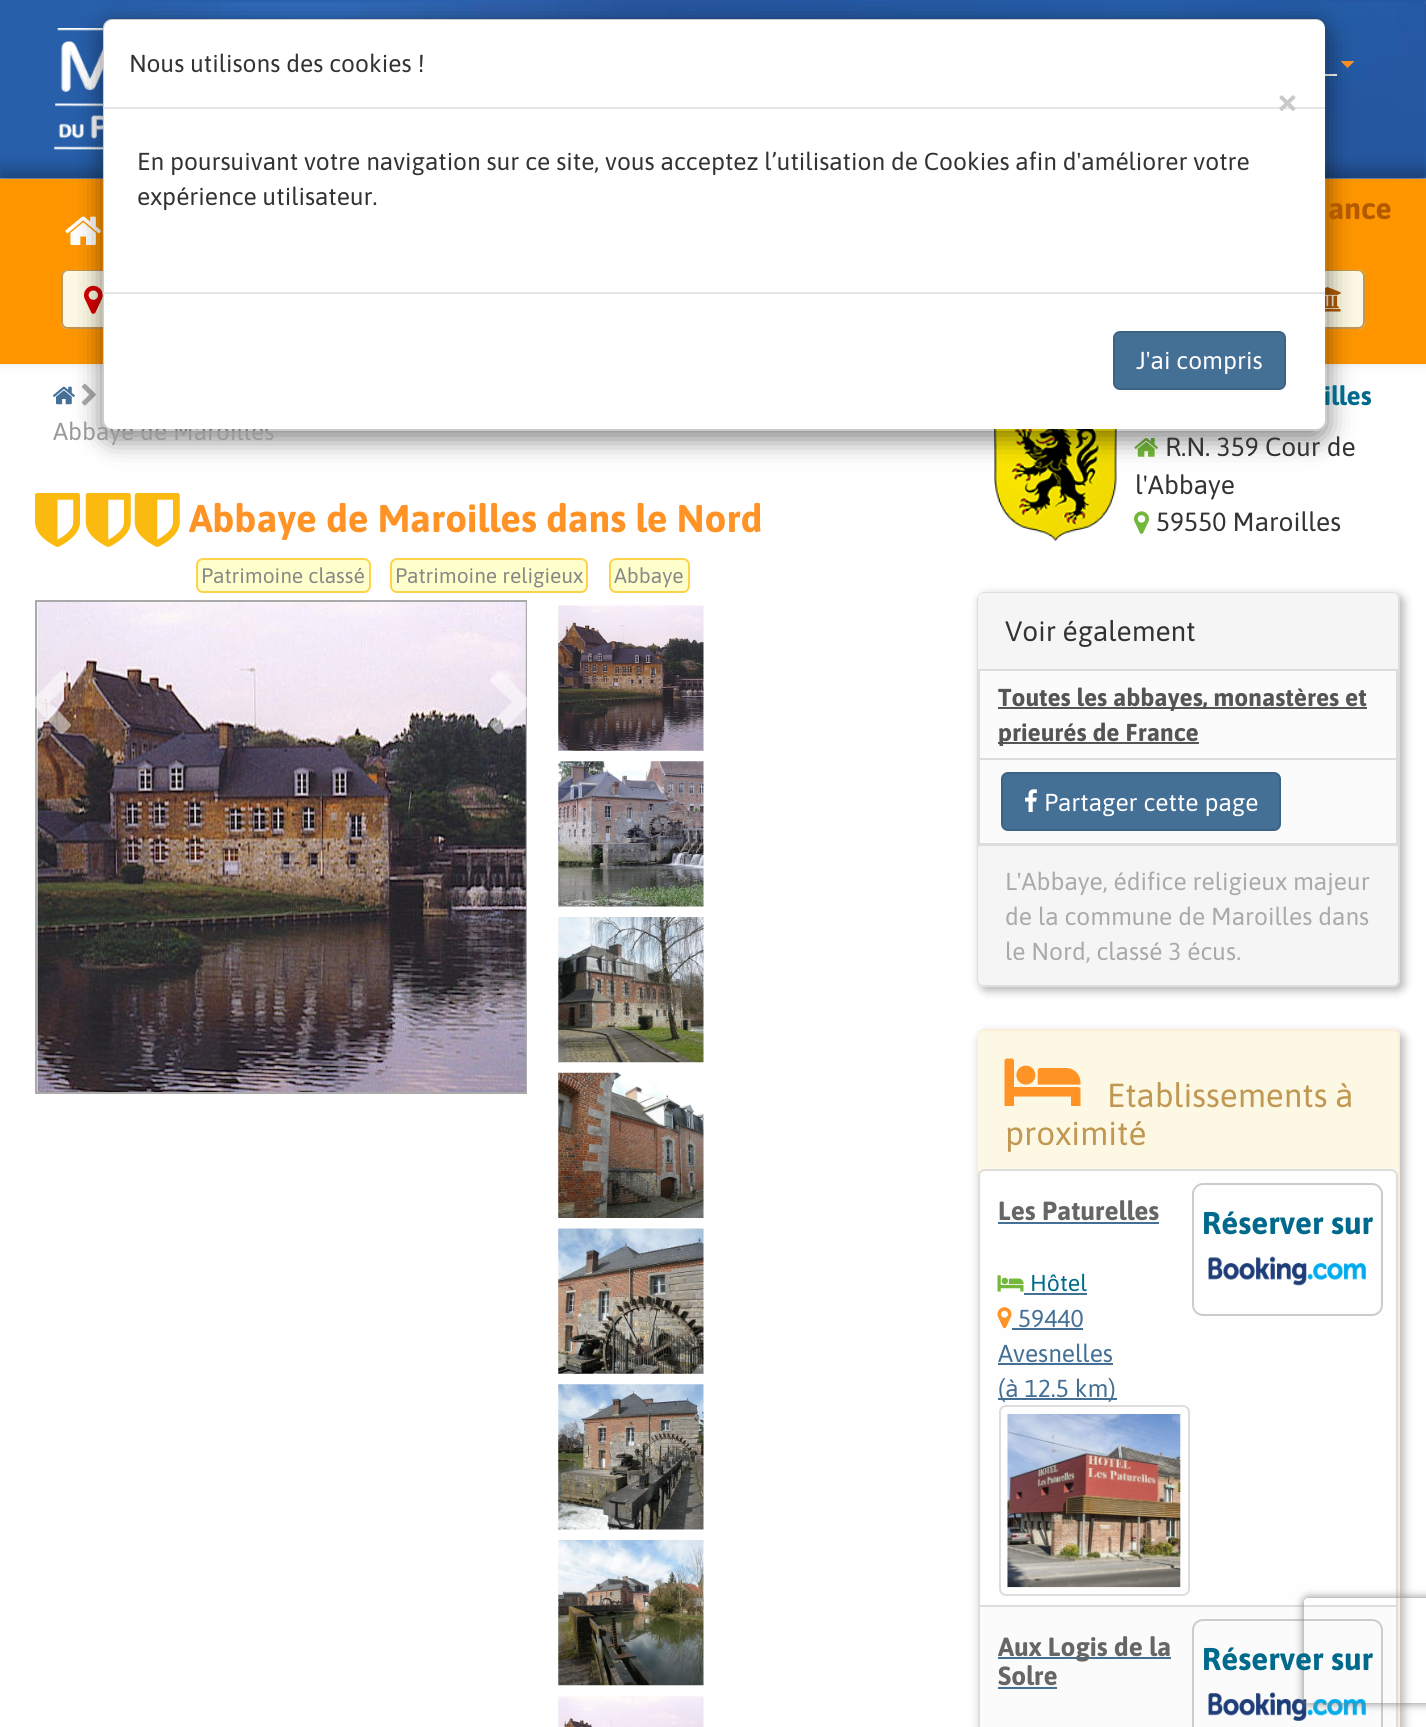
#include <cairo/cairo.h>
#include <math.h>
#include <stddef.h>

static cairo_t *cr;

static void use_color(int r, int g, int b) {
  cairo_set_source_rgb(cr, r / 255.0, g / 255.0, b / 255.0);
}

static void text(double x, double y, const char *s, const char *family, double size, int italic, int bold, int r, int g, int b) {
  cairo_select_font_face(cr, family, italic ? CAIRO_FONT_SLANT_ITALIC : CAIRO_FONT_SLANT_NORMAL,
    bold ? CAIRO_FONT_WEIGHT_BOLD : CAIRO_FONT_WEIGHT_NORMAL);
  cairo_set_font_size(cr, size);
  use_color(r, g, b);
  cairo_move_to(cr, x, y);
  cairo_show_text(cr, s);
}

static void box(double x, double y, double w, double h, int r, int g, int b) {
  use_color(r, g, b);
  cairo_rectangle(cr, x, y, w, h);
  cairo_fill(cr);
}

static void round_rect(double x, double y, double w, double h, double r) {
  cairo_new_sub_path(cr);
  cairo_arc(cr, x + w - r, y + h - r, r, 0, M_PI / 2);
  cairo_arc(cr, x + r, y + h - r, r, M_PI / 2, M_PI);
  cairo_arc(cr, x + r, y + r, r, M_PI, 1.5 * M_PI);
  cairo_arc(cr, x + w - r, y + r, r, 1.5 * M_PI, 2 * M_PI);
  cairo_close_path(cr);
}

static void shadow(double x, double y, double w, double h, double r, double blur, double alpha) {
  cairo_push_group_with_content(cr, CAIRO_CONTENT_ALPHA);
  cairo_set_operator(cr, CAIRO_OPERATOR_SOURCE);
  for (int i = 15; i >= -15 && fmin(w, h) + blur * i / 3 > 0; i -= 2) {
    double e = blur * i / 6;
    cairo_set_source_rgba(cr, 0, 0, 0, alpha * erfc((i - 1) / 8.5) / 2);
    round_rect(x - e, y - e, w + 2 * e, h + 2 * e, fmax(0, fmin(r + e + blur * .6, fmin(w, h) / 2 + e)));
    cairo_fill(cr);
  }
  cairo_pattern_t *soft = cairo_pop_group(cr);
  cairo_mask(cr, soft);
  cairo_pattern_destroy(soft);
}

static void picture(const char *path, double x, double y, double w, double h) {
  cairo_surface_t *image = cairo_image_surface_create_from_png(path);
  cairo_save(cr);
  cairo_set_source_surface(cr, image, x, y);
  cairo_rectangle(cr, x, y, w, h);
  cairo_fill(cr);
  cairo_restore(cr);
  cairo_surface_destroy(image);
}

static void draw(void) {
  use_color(255, 255, 255);
  cairo_paint(cr);
  box(0, 178, 1426, 1, 238, 238, 238);
  picture("img_01.png", 0, 0, 1426, 179);
  picture("img_02.png", 54, 28, 49, 122);
  use_color(255, 147, 38);
  cairo_new_path(cr);
  cairo_move_to(cr, 1340.5, 61);
  cairo_line_to(cr, 1354.5, 61);
  cairo_line_to(cr, 1347.5, 68);
  cairo_close_path(cr);
  cairo_fill(cr);
  box(1325, 74, 12, 2, 255, 255, 255);
  use_color(0, 0, 0);
  shadow(0, 170, 1426, 185, 0, 9, 0.3);
  box(0, 179, 1426, 185, 255, 150, 0);
  picture("img_03.png", 65, 216, 36, 29);
  use_color(252, 248, 227);
  cairo_new_path(cr);
  cairo_move_to(cr, 68, 270);
  cairo_line_to(cr, 320, 270);
  cairo_line_to(cr, 320, 329);
  cairo_line_to(cr, 68, 329);
  cairo_curve_to(cr, 64, 329, 61, 326, 61, 322);
  cairo_line_to(cr, 61, 277);
  cairo_curve_to(cr, 61, 273, 64, 270, 68, 270);
  cairo_close_path(cr);
  cairo_fill(cr);
  use_color(192, 152, 83);
  cairo_set_fill_rule(cr, CAIRO_FILL_RULE_EVEN_ODD);
  cairo_new_path(cr);
  cairo_move_to(cr, 68, 270);
  cairo_line_to(cr, 320, 270);
  cairo_line_to(cr, 320, 329);
  cairo_line_to(cr, 68, 329);
  cairo_curve_to(cr, 64, 329, 61, 326, 61, 322);
  cairo_line_to(cr, 61, 276);
  cairo_curve_to(cr, 61, 273, 64, 270, 68, 270);
  cairo_close_path(cr);
  cairo_move_to(cr, 68, 271);
  cairo_line_to(cr, 320, 271);
  cairo_line_to(cr, 320, 327);
  cairo_line_to(cr, 68, 327);
  cairo_curve_to(cr, 65, 327, 63, 325, 63, 322);
  cairo_line_to(cr, 63, 276);
  cairo_curve_to(cr, 63, 274, 65, 271, 68, 271);
  cairo_close_path(cr);
  cairo_fill(cr);
  picture("img_04.png", 84, 285, 19, 29);
  use_color(252, 248, 227);
  cairo_new_path(cr);
  cairo_move_to(cr, 1293, 270);
  cairo_line_to(cr, 1358, 270);
  cairo_curve_to(cr, 1362, 270, 1365, 273, 1365, 277);
  cairo_line_to(cr, 1365, 322);
  cairo_curve_to(cr, 1365, 326, 1362, 329, 1358, 329);
  cairo_line_to(cr, 1293, 329);
  cairo_close_path(cr);
  cairo_fill(cr);
  use_color(192, 152, 83);
  cairo_new_path(cr);
  cairo_move_to(cr, 1293, 270);
  cairo_line_to(cr, 1358, 270);
  cairo_curve_to(cr, 1362, 270, 1365, 273, 1365, 276);
  cairo_line_to(cr, 1365, 322);
  cairo_curve_to(cr, 1365, 326, 1362, 329, 1358, 329);
  cairo_line_to(cr, 1293, 329);
  cairo_close_path(cr);
  cairo_move_to(cr, 1293, 271);
  cairo_line_to(cr, 1358, 271);
  cairo_curve_to(cr, 1361, 271, 1363, 274, 1363, 276);
  cairo_line_to(cr, 1363, 322);
  cairo_curve_to(cr, 1363, 325, 1361, 327, 1358, 327);
  cairo_line_to(cr, 1293, 327);
  cairo_close_path(cr);
  cairo_fill(cr);
  picture("img_05.png", 1325, 287, 16, 25);
  picture("img_06.png", 52, 386, 23, 19);
  picture("img_07.png", 81, 383, 15, 23);
  picture("img_10.png", 994, 429, 123, 112);
  picture("img_11.png", 1134, 438, 24, 19);
  cairo_save(cr);
  cairo_new_path(cr);
  cairo_move_to(cr, 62, 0);
  cairo_line_to(cr, 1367, 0);
  cairo_line_to(cr, 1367, 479);
  cairo_line_to(cr, 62, 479);
  cairo_close_path(cr);
  cairo_move_to(cr, 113, 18);
  cairo_line_to(cr, 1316, 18);
  cairo_curve_to(cr, 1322, 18, 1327, 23, 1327, 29);
  cairo_line_to(cr, 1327, 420);
  cairo_curve_to(cr, 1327, 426, 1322, 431, 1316, 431);
  cairo_line_to(cr, 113, 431);
  cairo_curve_to(cr, 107, 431, 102, 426, 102, 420);
  cairo_line_to(cr, 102, 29);
  cairo_curve_to(cr, 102, 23, 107, 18, 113, 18);
  cairo_close_path(cr);
  cairo_clip(cr);
  use_color(0, 0, 0);
  shadow(102, 26, 1225, 413, 11, 13, 0.5);
  cairo_restore(cr);
  picture("img_08.png", 35, 493, 45, 54);
  picture("img_09.png", 85, 493, 46, 54);
  picture("img_09.png", 134, 493, 46, 54);
  use_color(255, 255, 204);
  round_rect(197, 559, 173, 33, 6);
  cairo_fill_preserve(cr);
  use_color(255, 210, 76);
  cairo_stroke(cr);
  use_color(255, 255, 204);
  round_rect(391, 559, 196, 33, 6);
  cairo_fill_preserve(cr);
  use_color(255, 210, 76);
  cairo_stroke(cr);
  use_color(255, 255, 204);
  round_rect(610, 559, 79, 33, 6);
  cairo_fill_preserve(cr);
  use_color(255, 210, 76);
  cairo_stroke(cr);
  picture("img_12.png", 1134, 511, 15, 23);
  cairo_rectangle(cr, 36, 601, 490, 492);
  use_color(170, 170, 170);
  cairo_stroke(cr);
  picture("img_13.png", 37, 602, 489, 490);
  cairo_set_source_rgba(cr, 1, 1, 1, 0.5);
  cairo_set_fill_rule(cr, CAIRO_FILL_RULE_WINDING);
  cairo_new_path(cr);
  cairo_move_to(cr, 70, 682);
  cairo_line_to(cr, 50, 702);
  cairo_line_to(cr, 67, 720);
  cairo_curve_to(cr, 73, 726, 72, 725, 66, 731);
  cairo_curve_to(cr, 61, 736, 61, 734, 55, 728);
  cairo_line_to(cr, 31, 703);
  cairo_line_to(cr, 31, 701);
  cairo_line_to(cr, 60, 672);
  cairo_curve_to(cr, 62, 669, 65, 672, 66, 674);
  cairo_line_to(cr, 71, 679);
  cairo_curve_to(cr, 71, 680, 71, 681, 70, 682);
  cairo_close_path(cr);
  cairo_fill(cr);
  cairo_new_path(cr);
  cairo_move_to(cr, 530, 704);
  cairo_line_to(cr, 501, 733);
  cairo_curve_to(cr, 498, 736, 494, 730, 493, 729);
  cairo_curve_to(cr, 487, 723, 491, 722, 498, 716);
  cairo_line_to(cr, 512, 702);
  cairo_curve_to(cr, 509, 699, 490, 682, 490, 680);
  cairo_curve_to(cr, 490, 678, 493, 676, 494, 675);
  cairo_curve_to(cr, 500, 669, 499, 670, 506, 676);
  cairo_line_to(cr, 525, 696);
  cairo_curve_to(cr, 525, 696, 531, 700, 530, 703);
  cairo_close_path(cr);
  cairo_fill(cr);
  picture("img_14.png", 558, 605, 146, 146);
  picture("img_15.png", 558, 761, 146, 146);
  picture("img_16.png", 558, 917, 146, 146);
  picture("img_17.png", 558, 1072, 146, 146);
  picture("img_18.png", 558, 1228, 146, 146);
  picture("img_19.png", 558, 1384, 146, 146);
  picture("img_20.png", 558, 1540, 146, 146);
  picture("img_21.png", 558, 1695, 146, 32);
  cairo_save(cr);
  cairo_set_fill_rule(cr, CAIRO_FILL_RULE_EVEN_ODD);
  cairo_new_path(cr);
  cairo_move_to(cr, 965, 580);
  cairo_line_to(cr, 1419, 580);
  cairo_line_to(cr, 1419, 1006);
  cairo_line_to(cr, 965, 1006);
  cairo_close_path(cr);
  cairo_move_to(cr, 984, 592);
  cairo_line_to(cr, 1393, 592);
  cairo_curve_to(cr, 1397, 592, 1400, 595, 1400, 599);
  cairo_line_to(cr, 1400, 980);
  cairo_curve_to(cr, 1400, 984, 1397, 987, 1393, 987);
  cairo_line_to(cr, 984, 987);
  cairo_curve_to(cr, 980, 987, 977, 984, 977, 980);
  cairo_line_to(cr, 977, 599);
  cairo_curve_to(cr, 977, 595, 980, 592, 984, 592);
  cairo_close_path(cr);
  cairo_clip(cr);
  use_color(170, 170, 170);
  shadow(980, 595, 424, 396, 7, 4.5, 0.85);
  cairo_restore(cr);
  cairo_set_source_rgba(cr, 0.933, 0.933, 0.933, 0.2);
  round_rect(978, 593, 421, 393, 6);
  cairo_fill_preserve(cr);
  use_color(221, 221, 221);
  cairo_stroke(cr);
  use_color(245, 245, 245);
  cairo_new_path(cr);
  cairo_move_to(cr, 983, 593);
  cairo_line_to(cr, 1393, 593);
  cairo_curve_to(cr, 1396, 593, 1398, 595, 1398, 598);
  cairo_line_to(cr, 1398, 669);
  cairo_line_to(cr, 978, 669);
  cairo_line_to(cr, 978, 598);
  cairo_curve_to(cr, 978, 595, 980, 593, 983, 593);
  cairo_close_path(cr);
  cairo_fill(cr);
  cairo_rectangle(cr, 979, 670, 418, 89);
  use_color(221, 221, 221);
  cairo_stroke(cr);
  box(998, 707, 369, 2, 85, 85, 85);
  box(998, 742, 201, 2, 85, 85, 85);
  use_color(245, 245, 245);
  cairo_new_path(cr);
  cairo_move_to(cr, 978, 844);
  cairo_line_to(cr, 1398, 844);
  cairo_line_to(cr, 1398, 980);
  cairo_curve_to(cr, 1398, 983, 1396, 985, 1393, 985);
  cairo_line_to(cr, 983, 985);
  cairo_curve_to(cr, 980, 985, 978, 983, 978, 980);
  cairo_close_path(cr);
  cairo_fill(cr);
  cairo_rectangle(cr, 979, 759, 418, 85);
  use_color(221, 221, 221);
  cairo_stroke(cr);
  use_color(68, 112, 150);
  round_rect(1002, 773, 278, 57, 6);
  cairo_fill_preserve(cr);
  use_color(60, 99, 132);
  cairo_stroke(cr);
  picture("img_22.png", 1025, 789, 12, 23);
  box(978, 845, 420, 1, 221, 221, 221);
  cairo_save(cr);
  cairo_set_fill_rule(cr, CAIRO_FILL_RULE_EVEN_ODD);
  cairo_new_path(cr);
  cairo_move_to(cr, 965, 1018);
  cairo_line_to(cr, 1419, 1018);
  cairo_line_to(cr, 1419, 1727);
  cairo_line_to(cr, 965, 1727);
  cairo_close_path(cr);
  cairo_move_to(cr, 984, 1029);
  cairo_line_to(cr, 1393, 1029);
  cairo_curve_to(cr, 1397, 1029, 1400, 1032, 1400, 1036);
  cairo_line_to(cr, 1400, 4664);
  cairo_curve_to(cr, 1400, 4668, 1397, 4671, 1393, 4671);
  cairo_line_to(cr, 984, 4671);
  cairo_curve_to(cr, 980, 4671, 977, 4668, 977, 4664);
  cairo_line_to(cr, 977, 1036);
  cairo_curve_to(cr, 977, 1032, 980, 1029, 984, 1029);
  cairo_close_path(cr);
  cairo_clip(cr);
  use_color(170, 170, 170);
  shadow(980, 1033, 424, 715, 7, 4.5, 0.85);
  cairo_restore(cr);
  cairo_set_source_rgba(cr, 0.933, 0.933, 0.933, 0.2);
  round_rect(978, 1030, 421, 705, 6);
  cairo_fill_preserve(cr);
  use_color(251, 238, 213);
  cairo_stroke(cr);
  use_color(252, 248, 227);
  cairo_new_path(cr);
  cairo_move_to(cr, 983, 1031);
  cairo_line_to(cr, 1393, 1031);
  cairo_curve_to(cr, 1396, 1031, 1398, 1033, 1398, 1036);
  cairo_line_to(cr, 1398, 1169);
  cairo_line_to(cr, 978, 1169);
  cairo_line_to(cr, 978, 1036);
  cairo_curve_to(cr, 978, 1033, 980, 1031, 983, 1031);
  cairo_close_path(cr);
  cairo_fill(cr);
  picture("img_23.png", 1004, 1058, 77, 48);
  cairo_set_source_rgba(cr, 1, 1, 1, 0.7);
  cairo_new_path(cr);
  cairo_move_to(cr, 985, 1170);
  cairo_line_to(cr, 1391, 1170);
  cairo_curve_to(cr, 1394.5, 1170, 1397, 1172.5, 1397, 1176);
  cairo_line_to(cr, 1397, 1606);
  cairo_line_to(cr, 979, 1606);
  cairo_line_to(cr, 979, 1176);
  cairo_curve_to(cr, 979, 1172.5, 981.5, 1170, 985, 1170);
  cairo_close_path(cr);
  cairo_fill_preserve(cr);
  use_color(221, 221, 221);
  cairo_stroke(cr);
  box(998, 1222, 161, 2, 68, 112, 150);
  picture("img_24.png", 997, 1275, 27, 17);
  box(1024, 1293, 63, 2, 68, 112, 150);
  picture("img_25.png", 997, 1307, 15, 22);
  box(1012, 1328, 71, 2, 68, 112, 150);
  box(998, 1363, 115, 2, 68, 112, 150);
  box(998, 1398, 119, 2, 68, 112, 150);
  round_rect(1000, 1406, 189, 189, 6);
  use_color(221, 221, 221);
  cairo_stroke(cr);
  picture("img_26.png", 1007, 1414, 174, 174);
  round_rect(1193, 1184, 189, 131, 10);
  use_color(204, 204, 204);
  cairo_stroke(cr);
  picture("img_27.png", 1208, 1256, 158, 30);
  cairo_rectangle(cr, 979, 1606, 418, 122);
  use_color(221, 221, 221);
  cairo_stroke(cr);
  box(998, 1657, 173, 2, 68, 112, 150);
  box(998, 1687, 59, 2, 68, 112, 150);
  round_rect(1193, 1620, 189, 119, 10);
  use_color(204, 204, 204);
  cairo_stroke(cr);
  picture("img_28.png", 1208, 1692, 158, 29);
  cairo_save(cr);
  cairo_set_fill_rule(cr, CAIRO_FILL_RULE_EVEN_ODD);
  cairo_new_path(cr);
  cairo_move_to(cr, 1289, 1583);
  cairo_line_to(cr, 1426, 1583);
  cairo_line_to(cr, 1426, 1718);
  cairo_line_to(cr, 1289, 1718);
  cairo_close_path(cr);
  cairo_move_to(cr, 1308, 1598);
  cairo_line_to(cr, 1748, 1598);
  cairo_curve_to(cr, 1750, 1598, 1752, 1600, 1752, 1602);
  cairo_line_to(cr, 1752, 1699);
  cairo_curve_to(cr, 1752, 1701, 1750, 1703, 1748, 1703);
  cairo_line_to(cr, 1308, 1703);
  cairo_curve_to(cr, 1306, 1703, 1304, 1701, 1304, 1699);
  cairo_line_to(cr, 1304, 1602);
  cairo_curve_to(cr, 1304, 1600, 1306, 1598, 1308, 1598);
  cairo_close_path(cr);
  cairo_clip(cr);
  use_color(128, 128, 128);
  shadow(1304, 1598, 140, 105, 4, 4.5, 1);
  cairo_restore(cr);
  text(1328, 219, "ance", "Asap", 30, 0, 1, 179, 89, 0);
  text(53, 440, "Abbaye de Maroilles", "Asap", 24.5, 0, 0, 153, 153, 153);
  use_color(255, 255, 255);
  round_rect(103, 19, 1222, 410, 9);
  cairo_fill(cr);
  text(189, 532, "Abbaye de Maroilles dans le Nord", "Asap", 38.5, 0, 1, 255, 147, 38);
  text(201, 583, "Patrimoine classé", "Asap", 21, 0, 0, 136, 136, 136);
  text(395, 583, "Patrimoine religieux", "Asap", 21, 0, 0, 136, 136, 136);
  text(614, 583, "Abbaye", "Asap", 21, 0, 0, 136, 136, 136);
  text(1324, 405, "illes", "Asap", 26.25, 0, 1, 0, 105, 140);
  round_rect(103, 19, 1223, 411, 10);
  cairo_set_source_rgba(cr, 0, 0, 0, 0.2);
  cairo_stroke(cr);
  text(137, 205, "expérience utilisateur.", "Asap", 24.5, 0, 0, 51, 51, 51);
  text(137, 170, "En poursuivant votre navigation sur ce site, vous acceptez l’utilisation de Cookies afin d'améliorer votre", "Asap", 24.5, 0, 0, 51, 51, 51);
  box(103, 107, 1222, 2, 229, 229, 229);
  text(1277, 112, "×", "Asap", 37, 0, 1, 201, 201, 201);
  use_color(68, 112, 150);
  round_rect(1114, 332, 171, 57, 6);
  cairo_fill_preserve(cr);
  use_color(60, 99, 132);
  cairo_stroke(cr);
  text(1136, 369, "J'ai compris", "Asap", 24.5, 0, 0, 255, 255, 255);
  text(129, 72, "Nous utilisons des cookies !", "Asap", 24.5, 0, 0, 51, 51, 51);
  box(103, 292, 1222, 2, 229, 229, 229);
  text(1165, 456, "R.N. 359 Cour de", "Asap", 26.25, 0, 0, 51, 51, 51);
  text(1135, 494, "l'Abbaye", "Asap", 26.25, 0, 0, 51, 51, 51);
  text(1156, 531, "59550 Maroilles", "Asap", 26.25, 0, 0, 51, 51, 51);
  text(1005, 641, "Voir également", "Asap", 28, 0, 0, 51, 51, 51);
  text(998, 706, "Toutes les abbayes, monastères et", "Asap", 24.5, 0, 1, 85, 85, 85);
  text(998, 741, "prieurés de France", "Asap", 24.5, 0, 1, 85, 85, 85);
  text(1044, 811, "Partager cette page", "Asap", 24.5, 0, 0, 255, 255, 255);
  text(1005, 890, "L'Abbaye, édifice religieux majeur", "Asap", 24.5, 0, 0, 170, 170, 170);
  text(1005, 925, "de la commune de Maroilles dans", "Asap", 24.5, 0, 0, 170, 170, 170);
  text(1005, 960, "le Nord, classé 3 écus.", "Asap", 24.5, 0, 0, 170, 170, 170);
  text(1107, 1107, "Etablissements à", "Asap", 33.25, 0, 0, 192, 152, 83);
  text(1005, 1145, "proximité", "Asap", 33.25, 0, 0, 192, 152, 83);
  text(998, 1220, "Les Paturelles", "Asap", 26.25, 0, 1, 102, 102, 102);
  text(1030, 1291, "Hôtel", "Asap", 23, 0, 0, 0, 105, 140);
  text(1018, 1327, "59440", "Asap", 24.5, 0, 0, 68, 112, 150);
  text(998, 1362, "Avesnelles", "Asap", 24.5, 0, 0, 68, 112, 150);
  text(998, 1397, "(à 12.5 km)", "Asap", 24.5, 0, 0, 68, 112, 150);
  text(1202, 1234, "Réserver sur", "Asap", 31.5, 0, 1, 0, 105, 140);
  text(998, 1656, "Aux Logis de la", "Asap", 26.25, 0, 1, 102, 102, 102);
  text(998, 1685, "Solre", "Asap", 26.25, 0, 1, 102, 102, 102);
  text(1202, 1670, "Réserver sur", "Asap", 31.5, 0, 1, 0, 105, 140);
}

int main(void) {
  cairo_surface_t *surface = cairo_image_surface_create(CAIRO_FORMAT_RGB24, 1426, 1727);
  cr = cairo_create(surface);
  cairo_font_options_t *options = cairo_font_options_create();
  cairo_font_options_set_hint_metrics(options, CAIRO_HINT_METRICS_OFF);
  cairo_font_options_set_hint_style(options, CAIRO_HINT_STYLE_NONE);
  cairo_set_font_options(cr, options);
  cairo_set_miter_limit(cr, 4);
  draw();
  cairo_surface_write_to_png(surface, "out.png");
  cairo_font_options_destroy(options);
  cairo_destroy(cr);
  cairo_surface_destroy(surface);
  return 0;
}
